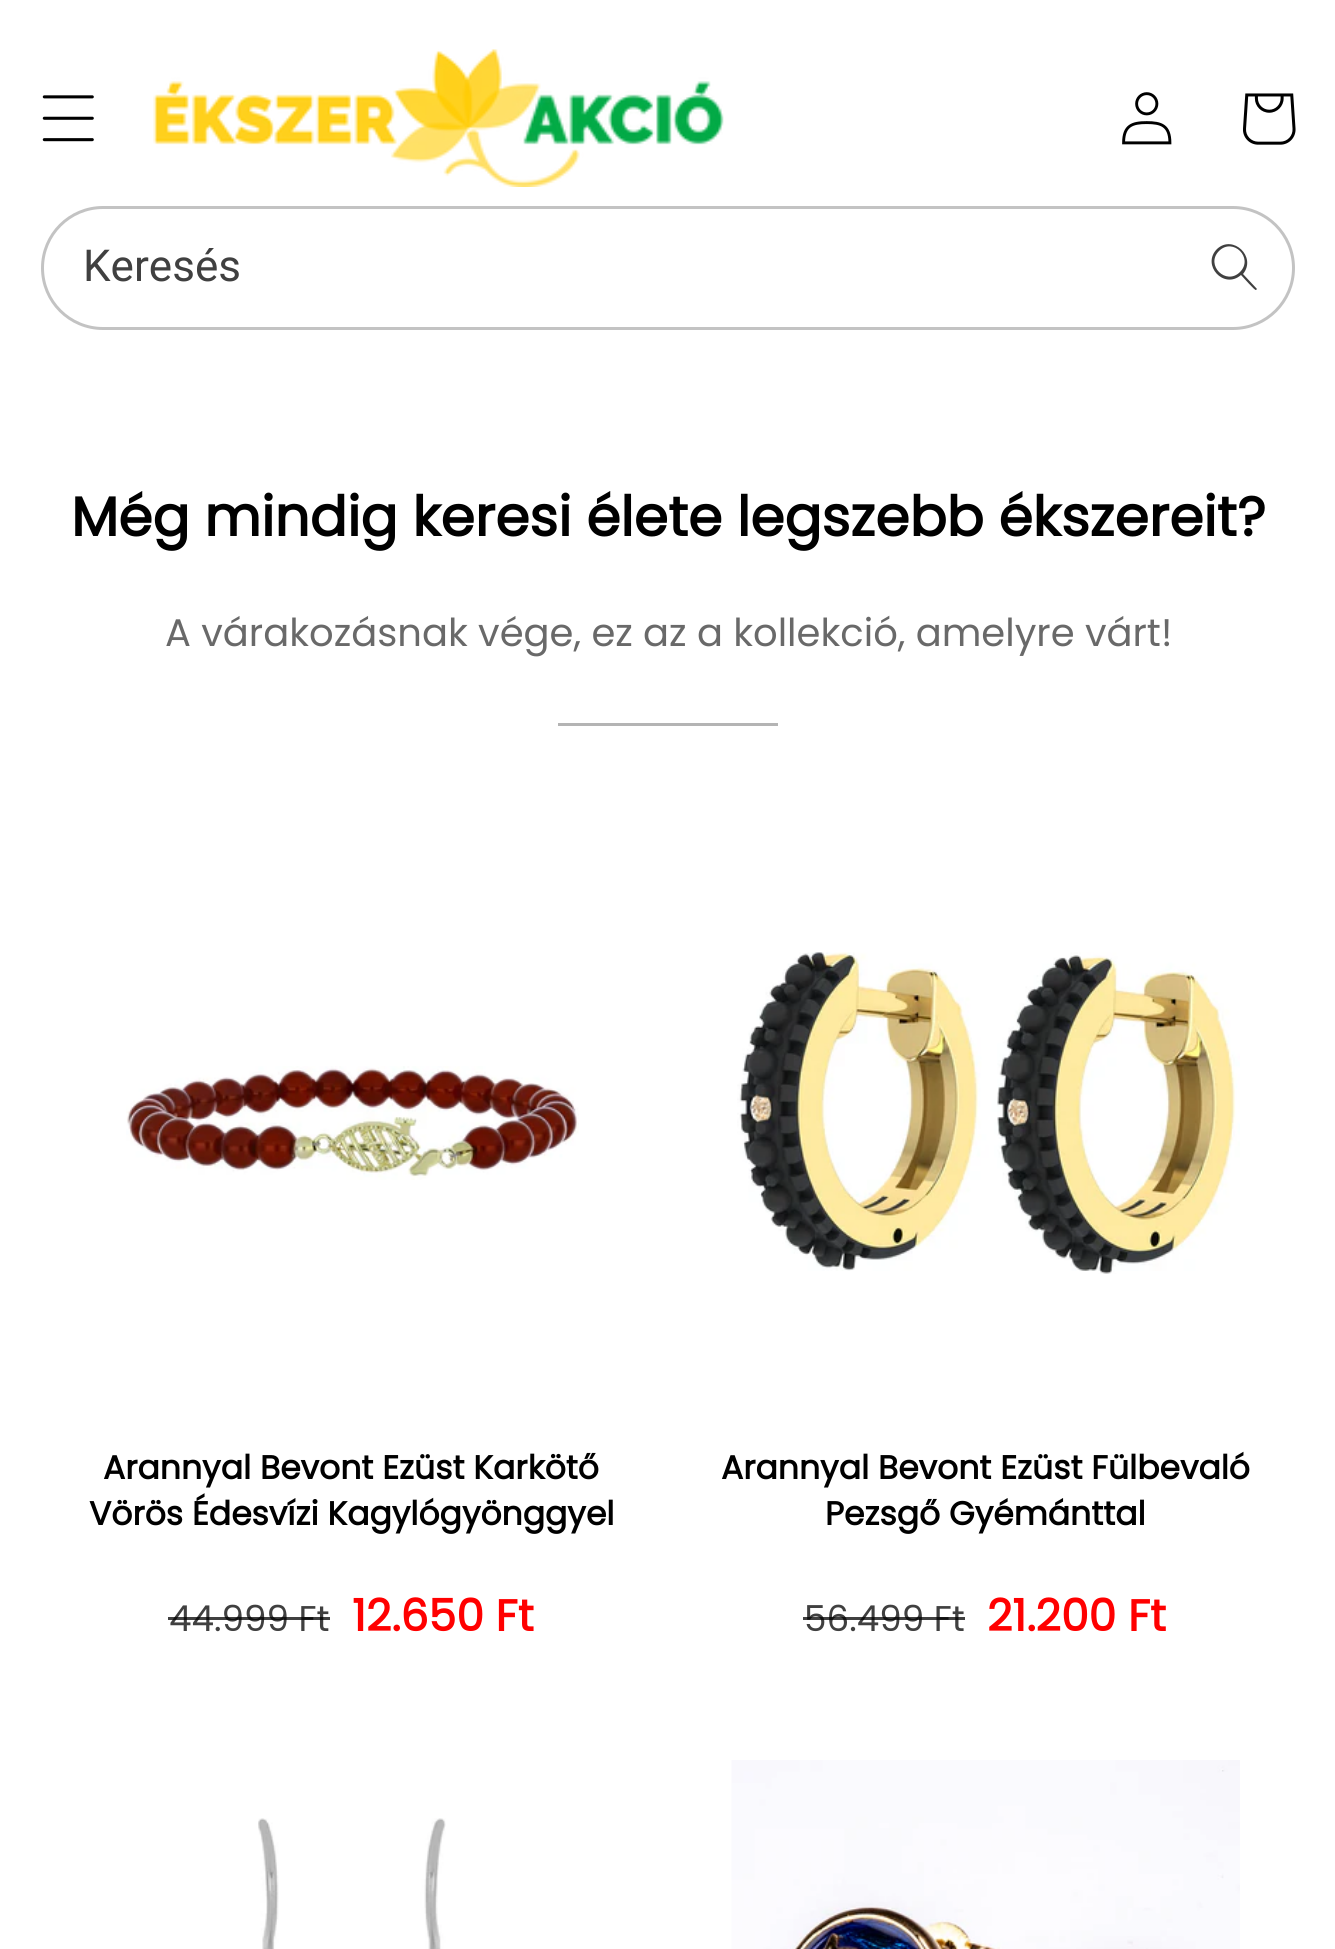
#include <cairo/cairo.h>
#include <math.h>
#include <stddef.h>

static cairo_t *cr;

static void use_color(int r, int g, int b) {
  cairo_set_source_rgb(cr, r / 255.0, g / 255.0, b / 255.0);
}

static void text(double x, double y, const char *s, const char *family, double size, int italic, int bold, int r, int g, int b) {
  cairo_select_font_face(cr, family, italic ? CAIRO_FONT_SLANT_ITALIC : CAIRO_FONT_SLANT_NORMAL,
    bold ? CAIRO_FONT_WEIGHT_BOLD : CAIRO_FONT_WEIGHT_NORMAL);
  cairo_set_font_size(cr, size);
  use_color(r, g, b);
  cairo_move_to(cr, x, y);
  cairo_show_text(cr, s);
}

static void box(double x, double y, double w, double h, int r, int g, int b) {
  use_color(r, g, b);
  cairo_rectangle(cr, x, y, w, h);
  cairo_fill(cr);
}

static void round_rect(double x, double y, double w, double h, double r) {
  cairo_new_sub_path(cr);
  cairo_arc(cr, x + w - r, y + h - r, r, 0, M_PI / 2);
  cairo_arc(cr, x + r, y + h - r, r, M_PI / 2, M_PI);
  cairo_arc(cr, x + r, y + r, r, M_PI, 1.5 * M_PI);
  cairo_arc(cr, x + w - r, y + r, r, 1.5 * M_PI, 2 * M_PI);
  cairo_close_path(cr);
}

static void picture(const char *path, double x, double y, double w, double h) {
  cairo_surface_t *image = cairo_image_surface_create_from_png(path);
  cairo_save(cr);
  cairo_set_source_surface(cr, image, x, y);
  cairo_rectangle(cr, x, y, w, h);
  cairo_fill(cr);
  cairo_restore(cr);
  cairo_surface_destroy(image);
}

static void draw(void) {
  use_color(255, 255, 255);
  cairo_paint(cr);
  picture("img_01.png", 42, 95, 52, 47);
  picture("img_02.png", 153, 49, 571, 138);
  picture("img_03.png", 1122, 92, 50, 53);
  picture("img_04.png", 1243, 93, 53, 52);
  round_rect(42.5, 207.5, 1251, 121, 60.5);
  use_color(195, 195, 195);
  cairo_set_line_width(cr, 3);
  cairo_stroke(cr);
  use_color(64, 64, 64);
  cairo_set_fill_rule(cr, CAIRO_FILL_RULE_EVEN_ODD);
  cairo_new_path(cr);
  cairo_move_to(cr, 1240, 272);
  cairo_curve_to(cr, 1226, 286, 1205, 265, 1219, 251);
  cairo_curve_to(cr, 1233, 237, 1254, 258, 1240, 272);
  cairo_close_path(cr);
  cairo_move_to(cr, 1241, 275);
  cairo_curve_to(cr, 1224, 290, 1201, 265, 1217, 249);
  cairo_curve_to(cr, 1233, 234, 1257, 257, 1243, 274);
  cairo_line_to(cr, 1257, 289);
  cairo_line_to(cr, 1256, 290);
  cairo_curve_to(cr, 1255, 291, 1243, 277, 1241, 275);
  cairo_close_path(cr);
  cairo_fill(cr);
  box(558, 723, 220, 3, 180, 180, 180);
  picture("img_05.png", 126, 1066, 453, 114);
  picture("img_06.png", 737, 952, 503, 322);
  picture("img_07.png", 258, 1818, 188, 131);
  picture("img_08.png", 731, 1760, 509, 189);
  text(83, 281, "Keresés", "Roboto", 44, 0, 0, 64, 64, 64);
  text(71, 536, "Még mindig keresi élete legszebb ékszereit?", "Poppins", 55, 0, 1, 0, 0, 0);
  text(165, 646, "A várakozásnak vége, ez az a kollekció, amelyre várt!", "Poppins", 38.5, 0, 0, 105, 105, 105);
  text(103, 1479, "Arannyal Bevont Ezüst Karkötő", "Poppins", 33, 0, 1, 0, 0, 0);
  text(89, 1525, "Vörös Édesvízi Kagylógyönggyel", "Poppins", 33, 0, 1, 0, 0, 0);
  text(169, 1631, "44.999 Ft", "Poppins", 35.75, 0, 0, 64, 64, 64);
  cairo_set_source_rgba(cr, 0, 0, 0, 0.75);
  cairo_rectangle(cr, 168, 1617, 162, 3);
  cairo_fill(cr);
  text(352, 1631, "12.650 Ft", "Poppins", 44, 0, 1, 255, 0, 0);
  text(721, 1479, "Arannyal Bevont Ezüst Fülbevaló", "Poppins", 33, 0, 1, 0, 0, 0);
  text(825, 1525, "Pezsgő Gyémánttal", "Poppins", 33, 0, 1, 0, 0, 0);
  text(804, 1631, "56.499 Ft", "Poppins", 35.75, 0, 0, 64, 64, 64);
  cairo_set_source_rgba(cr, 0, 0, 0, 0.75);
  cairo_rectangle(cr, 803, 1617, 162, 3);
  cairo_fill(cr);
  text(987, 1631, "21.200 Ft", "Poppins", 44, 0, 1, 255, 0, 0);
}

int main(void) {
  cairo_surface_t *surface = cairo_image_surface_create(CAIRO_FORMAT_RGB24, 1335, 1949);
  cr = cairo_create(surface);
  cairo_font_options_t *options = cairo_font_options_create();
  cairo_font_options_set_hint_metrics(options, CAIRO_HINT_METRICS_OFF);
  cairo_font_options_set_hint_style(options, CAIRO_HINT_STYLE_NONE);
  cairo_set_font_options(cr, options);
  cairo_set_miter_limit(cr, 4);
  draw();
  cairo_surface_write_to_png(surface, "out.png");
  cairo_font_options_destroy(options);
  cairo_destroy(cr);
  cairo_surface_destroy(surface);
  return 0;
}
